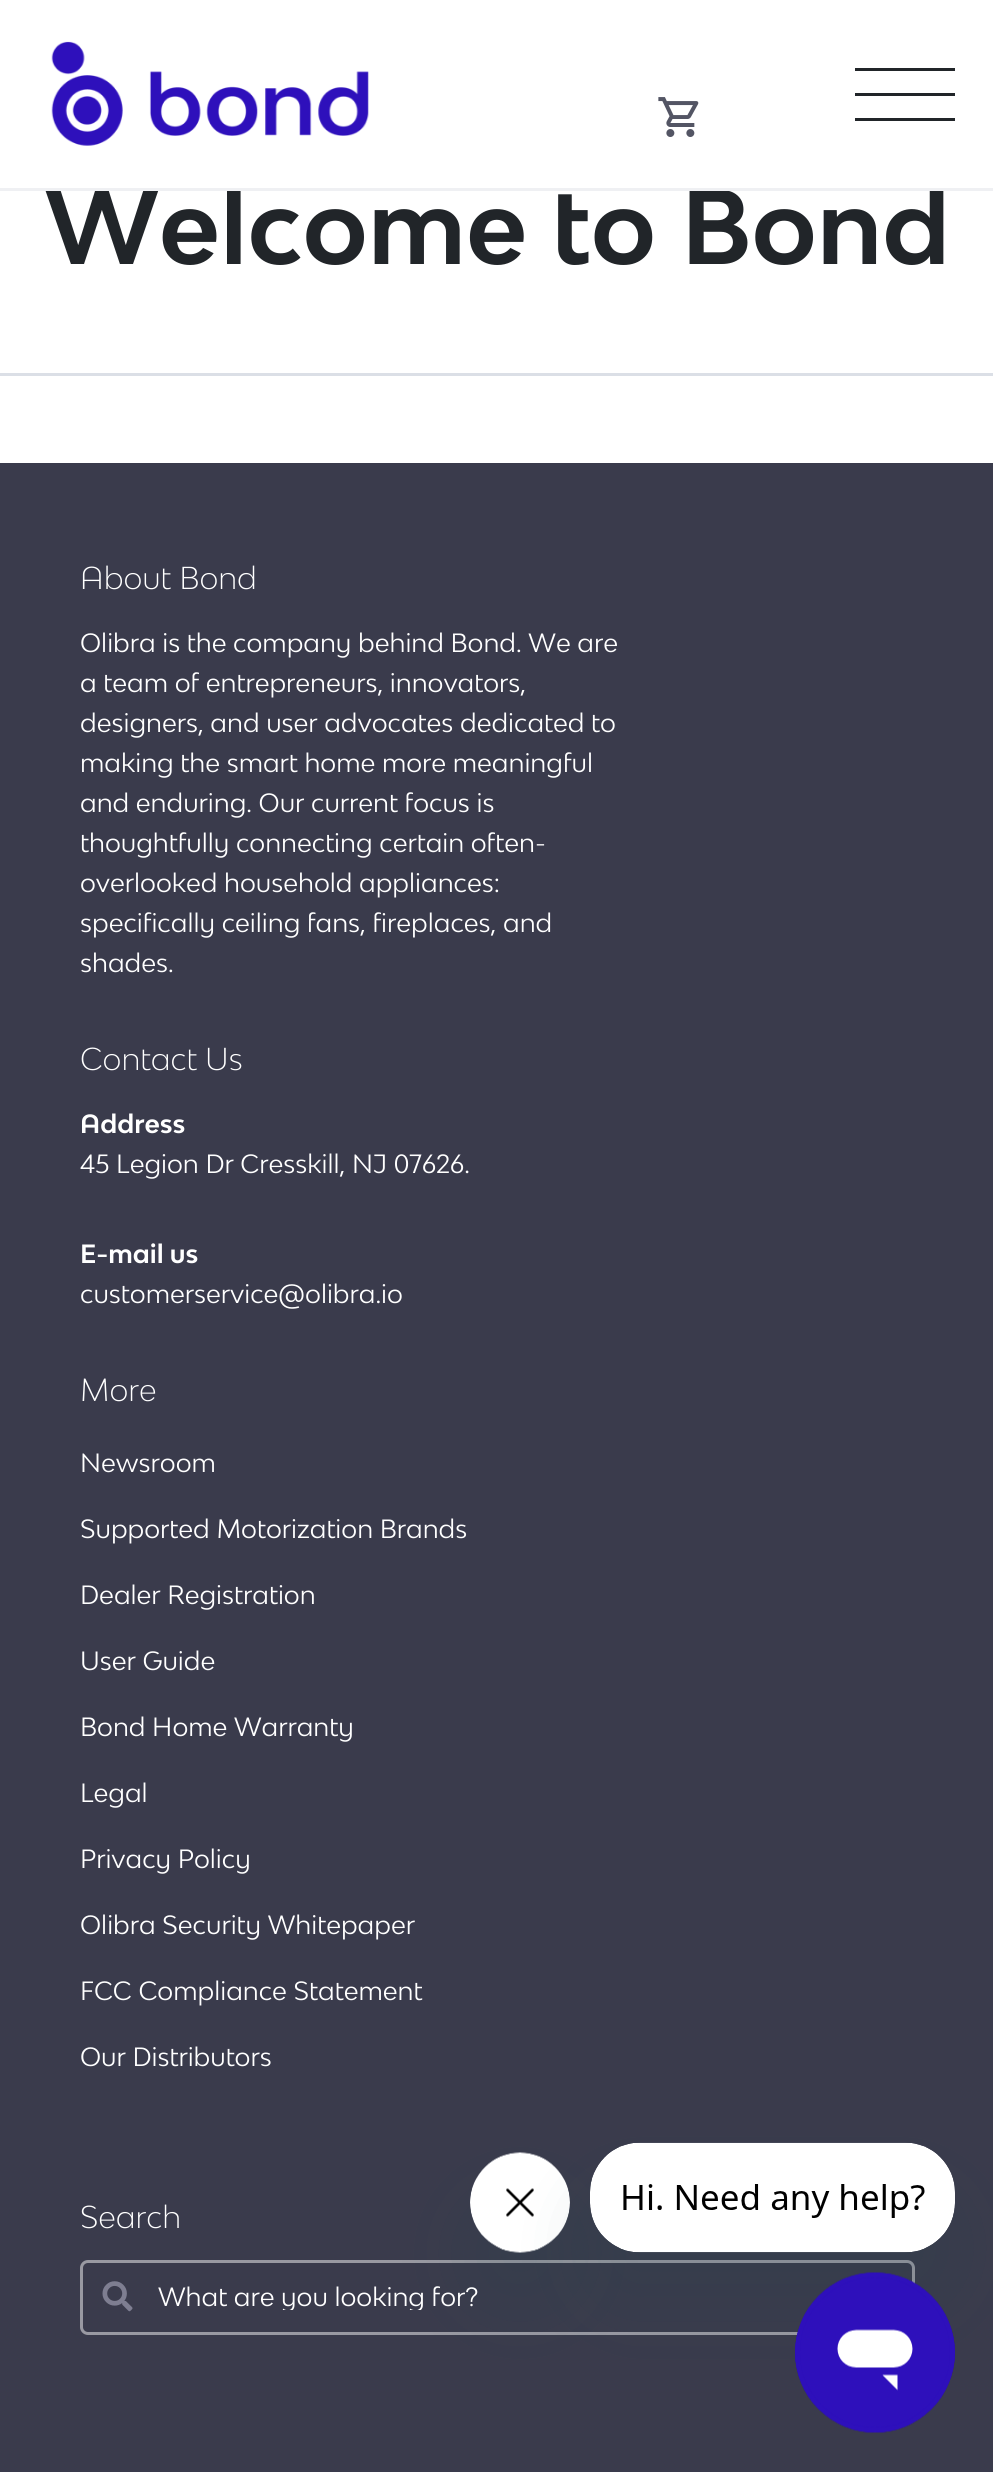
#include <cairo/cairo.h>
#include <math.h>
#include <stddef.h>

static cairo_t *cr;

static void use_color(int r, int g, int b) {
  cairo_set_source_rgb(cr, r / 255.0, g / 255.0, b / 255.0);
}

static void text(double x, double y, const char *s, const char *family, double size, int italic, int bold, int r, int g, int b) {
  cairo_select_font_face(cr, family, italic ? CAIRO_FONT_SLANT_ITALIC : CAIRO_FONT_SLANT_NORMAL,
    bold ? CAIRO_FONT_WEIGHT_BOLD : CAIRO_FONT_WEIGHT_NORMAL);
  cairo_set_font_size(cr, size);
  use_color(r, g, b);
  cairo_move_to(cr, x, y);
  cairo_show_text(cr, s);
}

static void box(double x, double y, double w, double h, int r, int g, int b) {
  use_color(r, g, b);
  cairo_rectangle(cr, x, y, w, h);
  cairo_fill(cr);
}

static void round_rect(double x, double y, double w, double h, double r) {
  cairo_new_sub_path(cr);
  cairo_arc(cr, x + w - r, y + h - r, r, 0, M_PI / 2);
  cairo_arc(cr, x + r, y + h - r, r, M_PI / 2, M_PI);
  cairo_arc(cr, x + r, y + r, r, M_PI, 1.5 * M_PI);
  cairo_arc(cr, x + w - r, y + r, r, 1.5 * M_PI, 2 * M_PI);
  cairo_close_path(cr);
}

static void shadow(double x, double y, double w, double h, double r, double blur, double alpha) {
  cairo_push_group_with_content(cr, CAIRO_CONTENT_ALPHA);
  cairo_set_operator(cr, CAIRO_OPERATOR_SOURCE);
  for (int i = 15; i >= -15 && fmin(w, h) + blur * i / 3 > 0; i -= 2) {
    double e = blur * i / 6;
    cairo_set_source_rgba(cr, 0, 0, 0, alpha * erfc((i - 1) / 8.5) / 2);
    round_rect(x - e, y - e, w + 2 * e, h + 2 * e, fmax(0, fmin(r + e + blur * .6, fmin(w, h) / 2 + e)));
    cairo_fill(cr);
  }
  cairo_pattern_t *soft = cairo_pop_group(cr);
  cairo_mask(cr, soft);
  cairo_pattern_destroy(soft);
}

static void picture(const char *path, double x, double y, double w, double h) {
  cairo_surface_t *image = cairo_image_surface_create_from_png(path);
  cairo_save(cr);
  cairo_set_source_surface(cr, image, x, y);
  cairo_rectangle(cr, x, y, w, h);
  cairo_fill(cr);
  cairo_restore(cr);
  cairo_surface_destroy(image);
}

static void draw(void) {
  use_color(255, 255, 255);
  cairo_paint(cr);
  picture("img_01.png", 51, 41, 318, 105);
  picture("img_02.png", 658, 97, 41, 40);
  box(855, 93, 100, 3, 33, 37, 41);
  box(855, 68, 100, 3, 33, 37, 41);
  box(855, 118, 100, 3, 33, 37, 41);
  box(0, 373, 993, 3, 219, 223, 230);
  box(0, 463, 993, 2009, 58, 59, 76);
  round_rect(81.5, 2261.5, 832, 72, 6.5);
  use_color(153, 153, 162);
  cairo_set_line_width(cr, 3);
  cairo_stroke(cr);
  picture("img_03.png", 102, 2281, 31, 31);
  use_color(23, 73, 77);
  shadow(470, 2203, 100, 100, 50, 37.5, 0.15);
  picture("img_05.png", 470, 2152, 100, 101);
  shadow(590, 2193, 365, 110, 50, 37.5, 0.15);
  picture("img_04.png", 590, 2142, 365, 111);
  picture("img_06.png", 795, 2272, 160, 161);
  text(45, 264, "Welcome to Bond", "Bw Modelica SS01", 100, 0, 1, 33, 37, 41);
  box(0, 188, 993, 3, 239, 240, 243);
  box(226, 186, 718, 2, 255, 255, 255);
  text(80, 589, "About Bond", "Bw Modelica SS01 Light", 30, 0, 0, 255, 255, 255);
  text(80, 652, "Olibra is the company behind Bond. We are", "Bw Modelica SS01", 25, 0, 0, 255, 255, 255);
  text(80, 692, "a team of entrepreneurs, innovators,", "Bw Modelica SS01", 25, 0, 0, 255, 255, 255);
  text(80, 732, "designers, and user advocates dedicated to", "Bw Modelica SS01", 25, 0, 0, 255, 255, 255);
  text(80, 772, "making the smart home more meaningful", "Bw Modelica SS01", 25, 0, 0, 255, 255, 255);
  text(80, 812, "and enduring. Our current focus is", "Bw Modelica SS01", 25, 0, 0, 255, 255, 255);
  text(80, 852, "thoughtfully connecting certain often-", "Bw Modelica SS01", 25, 0, 0, 255, 255, 255);
  text(80, 892, "overlooked household appliances:", "Bw Modelica SS01", 25, 0, 0, 255, 255, 255);
  text(80, 932, "specifically ceiling fans, fireplaces, and", "Bw Modelica SS01", 25, 0, 0, 255, 255, 255);
  text(80, 972, "shades.", "Bw Modelica SS01", 25, 0, 0, 255, 255, 255);
  text(80, 1070, "Contact Us", "Bw Modelica SS01 Light", 30, 0, 0, 255, 255, 255);
  text(80, 1133, "Address", "Bw Modelica SS01", 25, 0, 1, 255, 255, 255);
  text(80, 1173, "45 Legion Dr Cresskill, NJ 07626.", "Bw Modelica SS01", 25, 0, 0, 255, 255, 255);
  text(80, 1263, "E-mail us", "Bw Modelica SS01", 25, 0, 1, 255, 255, 255);
  text(80, 1303, "customerservice@olibra.io", "Bw Modelica SS01", 25, 0, 0, 255, 255, 255);
  text(80, 1401, "More", "Bw Modelica SS01 Light", 30, 0, 0, 255, 255, 255);
  text(80, 1472, "Newsroom", "Bw Modelica SS01", 25, 0, 0, 255, 255, 255);
  text(80, 1538, "Supported Motorization Brands", "Bw Modelica SS01", 25, 0, 0, 255, 255, 255);
  text(80, 1604, "Dealer Registration", "Bw Modelica SS01", 25, 0, 0, 255, 255, 255);
  text(80, 1670, "User Guide", "Bw Modelica SS01", 25, 0, 0, 255, 255, 255);
  text(80, 1736, "Bond Home Warranty", "Bw Modelica SS01", 25, 0, 0, 255, 255, 255);
  text(80, 1802, "Legal", "Bw Modelica SS01", 25, 0, 0, 255, 255, 255);
  text(80, 1868, "Privacy Policy", "Bw Modelica SS01", 25, 0, 0, 255, 255, 255);
  text(80, 1934, "Olibra Security Whitepaper", "Bw Modelica SS01", 25, 0, 0, 255, 255, 255);
  text(80, 2000, "FCC Compliance Statement", "Bw Modelica SS01", 25, 0, 0, 255, 255, 255);
  text(80, 2066, "Our Distributors", "Bw Modelica SS01", 25, 0, 0, 255, 255, 255);
  text(80, 2228, "Search", "Bw Modelica SS01 Light", 30, 0, 0, 255, 255, 255);
  cairo_save(cr);
  cairo_rectangle(cr, 158, 2280, 735, 30);
  cairo_clip(cr);
  text(158, 2306, "What are you looking for?", "Bw Modelica SS01", 25, 0, 0, 255, 255, 255);
  cairo_restore(cr);
}

int main(void) {
  cairo_surface_t *surface = cairo_image_surface_create(CAIRO_FORMAT_RGB24, 993, 2472);
  cr = cairo_create(surface);
  cairo_font_options_t *options = cairo_font_options_create();
  cairo_font_options_set_hint_metrics(options, CAIRO_HINT_METRICS_OFF);
  cairo_font_options_set_hint_style(options, CAIRO_HINT_STYLE_NONE);
  cairo_set_font_options(cr, options);
  cairo_set_miter_limit(cr, 4);
  draw();
  cairo_surface_write_to_png(surface, "out.png");
  cairo_font_options_destroy(options);
  cairo_destroy(cr);
  cairo_surface_destroy(surface);
  return 0;
}
